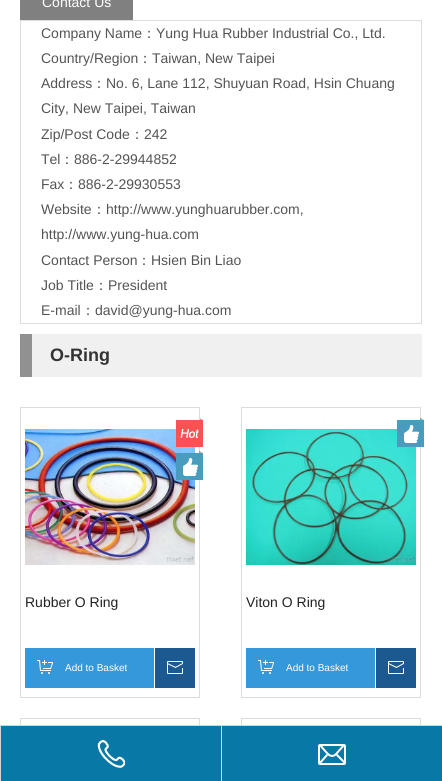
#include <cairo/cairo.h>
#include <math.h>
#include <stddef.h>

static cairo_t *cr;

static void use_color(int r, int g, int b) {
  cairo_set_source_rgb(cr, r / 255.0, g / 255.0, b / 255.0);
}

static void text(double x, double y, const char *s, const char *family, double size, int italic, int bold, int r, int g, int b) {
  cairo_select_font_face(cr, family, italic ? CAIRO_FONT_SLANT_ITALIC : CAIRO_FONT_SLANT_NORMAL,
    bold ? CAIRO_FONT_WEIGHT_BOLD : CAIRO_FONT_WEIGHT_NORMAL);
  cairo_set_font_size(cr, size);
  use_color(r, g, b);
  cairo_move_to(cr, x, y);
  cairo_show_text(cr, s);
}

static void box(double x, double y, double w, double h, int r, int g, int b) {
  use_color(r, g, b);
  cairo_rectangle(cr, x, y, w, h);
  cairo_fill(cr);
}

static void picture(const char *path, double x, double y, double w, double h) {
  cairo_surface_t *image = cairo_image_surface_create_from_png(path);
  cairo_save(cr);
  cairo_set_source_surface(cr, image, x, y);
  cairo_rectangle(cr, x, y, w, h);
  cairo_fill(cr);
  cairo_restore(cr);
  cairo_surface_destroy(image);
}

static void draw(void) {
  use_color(255, 255, 255);
  cairo_paint(cr);
  box(20, 0, 113, 20, 128, 128, 128);
  cairo_rectangle(cr, 20.5, 20.5, 401, 303);
  use_color(221, 221, 221);
  cairo_set_line_width(cr, 1);
  cairo_stroke(cr);
  box(32, 334, 390, 43, 240, 240, 240);
  box(20, 334, 12, 43, 145, 145, 145);
  cairo_rectangle(cr, 20.5, 407.5, 179, 290);
  use_color(220, 220, 220);
  cairo_stroke(cr);
  picture("img_03.png", 25, 429, 170, 136);
  picture("img_01.png", 176, 418, 27, 29);
  picture("img_02.png", 176, 451, 27, 29);
  box(25, 648, 129, 40, 52, 152, 219);
  picture("img_04.png", 37, 660, 16, 14);
  box(155, 648, 40, 40, 29, 89, 145);
  picture("img_05.png", 167, 661, 16, 13);
  cairo_rectangle(cr, 241.5, 407.5, 179, 290);
  use_color(220, 220, 220);
  cairo_stroke(cr);
  picture("img_07.png", 246, 429, 170, 136);
  picture("img_06.png", 397, 418, 27, 29);
  box(246, 648, 129, 40, 52, 152, 219);
  picture("img_04.png", 258, 660, 16, 14);
  box(376, 648, 40, 40, 29, 89, 145);
  picture("img_05.png", 388, 661, 16, 13);
  cairo_rectangle(cr, 20.5, 718.5, 179, 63);
  use_color(220, 220, 220);
  cairo_stroke(cr);
  cairo_rectangle(cr, 241.5, 718.5, 179, 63);
  cairo_stroke(cr);
  box(0, 725, 442, 1, 211, 211, 211);
  box(0, 726, 1, 55, 211, 211, 211);
  box(1, 726, 220, 55, 8, 121, 167);
  picture("img_08.png", 97, 740, 28, 28);
  box(221, 726, 1, 55, 211, 211, 211);
  box(222, 726, 220, 55, 8, 121, 167);
  picture("img_09.png", 318, 744, 28, 21);
  text(42, 7, "Contact Us", "Liberation Sans", 14, 0, 0, 255, 255, 255);
  text(41, 38, "Company Name", "Liberation Sans", 14, 0, 0, 84, 84, 84);
  text(142, 38, "：", "WenQuanYi Zen Hei Medium", 14, 0, 0, 84, 84, 84);
  text(156, 38, "Yung Hua Rubber Industrial Co., Ltd.", "Liberation Sans", 14, 0, 0, 84, 84, 84);
  text(41, 63, "Country/Region", "Liberation Sans", 14, 0, 0, 84, 84, 84);
  text(138, 63, "：", "WenQuanYi Zen Hei Medium", 14, 0, 0, 84, 84, 84);
  text(152, 63, "Taiwan, New Taipei", "Liberation Sans", 14, 0, 0, 84, 84, 84);
  text(41, 88, "Address", "Liberation Sans", 14, 0, 0, 84, 84, 84);
  text(92, 88, "：", "WenQuanYi Zen Hei Medium", 14, 0, 0, 84, 84, 84);
  text(106, 88, "No. 6, Lane 112, Shuyuan Road, Hsin Chuang", "Liberation Sans", 14, 0, 0, 84, 84, 84);
  text(41, 113, "City, New Taipei, Taiwan", "Liberation Sans", 14, 0, 0, 84, 84, 84);
  text(41, 139, "Zip/Post Code", "Liberation Sans", 14, 0, 0, 84, 84, 84);
  text(130, 139, "：", "WenQuanYi Zen Hei Medium", 14, 0, 0, 84, 84, 84);
  text(144, 139, "242", "Liberation Sans", 14, 0, 0, 84, 84, 84);
  text(41, 164, "Tel", "Liberation Sans", 14, 0, 0, 84, 84, 84);
  text(60, 164, "：", "WenQuanYi Zen Hei Medium", 14, 0, 0, 84, 84, 84);
  text(74, 164, "886-2-29944852", "Liberation Sans", 14, 0, 0, 84, 84, 84);
  text(41, 189, "Fax", "Liberation Sans", 14, 0, 0, 84, 84, 84);
  text(64, 189, "：", "WenQuanYi Zen Hei Medium", 14, 0, 0, 84, 84, 84);
  text(78, 189, "886-2-29930553", "Liberation Sans", 14, 0, 0, 84, 84, 84);
  text(41, 214, "Website", "Liberation Sans", 14, 0, 0, 84, 84, 84);
  text(92, 214, "：", "WenQuanYi Zen Hei Medium", 14, 0, 0, 84, 84, 84);
  text(106, 214, "http://www.yunghuarubber.com,", "Liberation Sans", 14, 0, 0, 84, 84, 84);
  text(41, 239, "http://www.yung-hua.com", "Liberation Sans", 14, 0, 0, 84, 84, 84);
  text(41, 265, "Contact Person", "Liberation Sans", 14, 0, 0, 84, 84, 84);
  text(137, 265, "：", "WenQuanYi Zen Hei Medium", 14, 0, 0, 84, 84, 84);
  text(151, 265, "Hsien Bin Liao", "Liberation Sans", 14, 0, 0, 84, 84, 84);
  text(41, 290, "Job Title", "Liberation Sans", 14, 0, 0, 84, 84, 84);
  text(94, 290, "：", "WenQuanYi Zen Hei Medium", 14, 0, 0, 84, 84, 84);
  text(108, 290, "President", "Liberation Sans", 14, 0, 0, 84, 84, 84);
  text(41, 315, "E-mail", "Liberation Sans", 14, 0, 0, 84, 84, 84);
  text(81, 315, "：", "WenQuanYi Zen Hei Medium", 14, 0, 0, 84, 84, 84);
  text(95, 315, "david@yung-hua.com", "Liberation Sans", 14, 0, 0, 84, 84, 84);
  text(50, 361, "O-Ring", "Liberation Sans", 18, 0, 1, 51, 51, 51);
  text(25, 607, "Rubber O Ring", "Liberation Sans", 14, 0, 0, 34, 34, 34);
  text(65, 671, "Add to Basket", "Liberation Sans", 10, 0, 0, 255, 255, 255);
  text(246, 607, "Viton O Ring", "Liberation Sans", 14, 0, 0, 34, 34, 34);
  text(286, 671, "Add to Basket", "Liberation Sans", 10, 0, 0, 255, 255, 255);
}

int main(void) {
  cairo_surface_t *surface = cairo_image_surface_create(CAIRO_FORMAT_RGB24, 442, 781);
  cr = cairo_create(surface);
  cairo_font_options_t *options = cairo_font_options_create();
  cairo_font_options_set_hint_metrics(options, CAIRO_HINT_METRICS_OFF);
  cairo_font_options_set_hint_style(options, CAIRO_HINT_STYLE_NONE);
  cairo_set_font_options(cr, options);
  cairo_set_miter_limit(cr, 4);
  draw();
  cairo_surface_write_to_png(surface, "out.png");
  cairo_font_options_destroy(options);
  cairo_destroy(cr);
  cairo_surface_destroy(surface);
  return 0;
}
